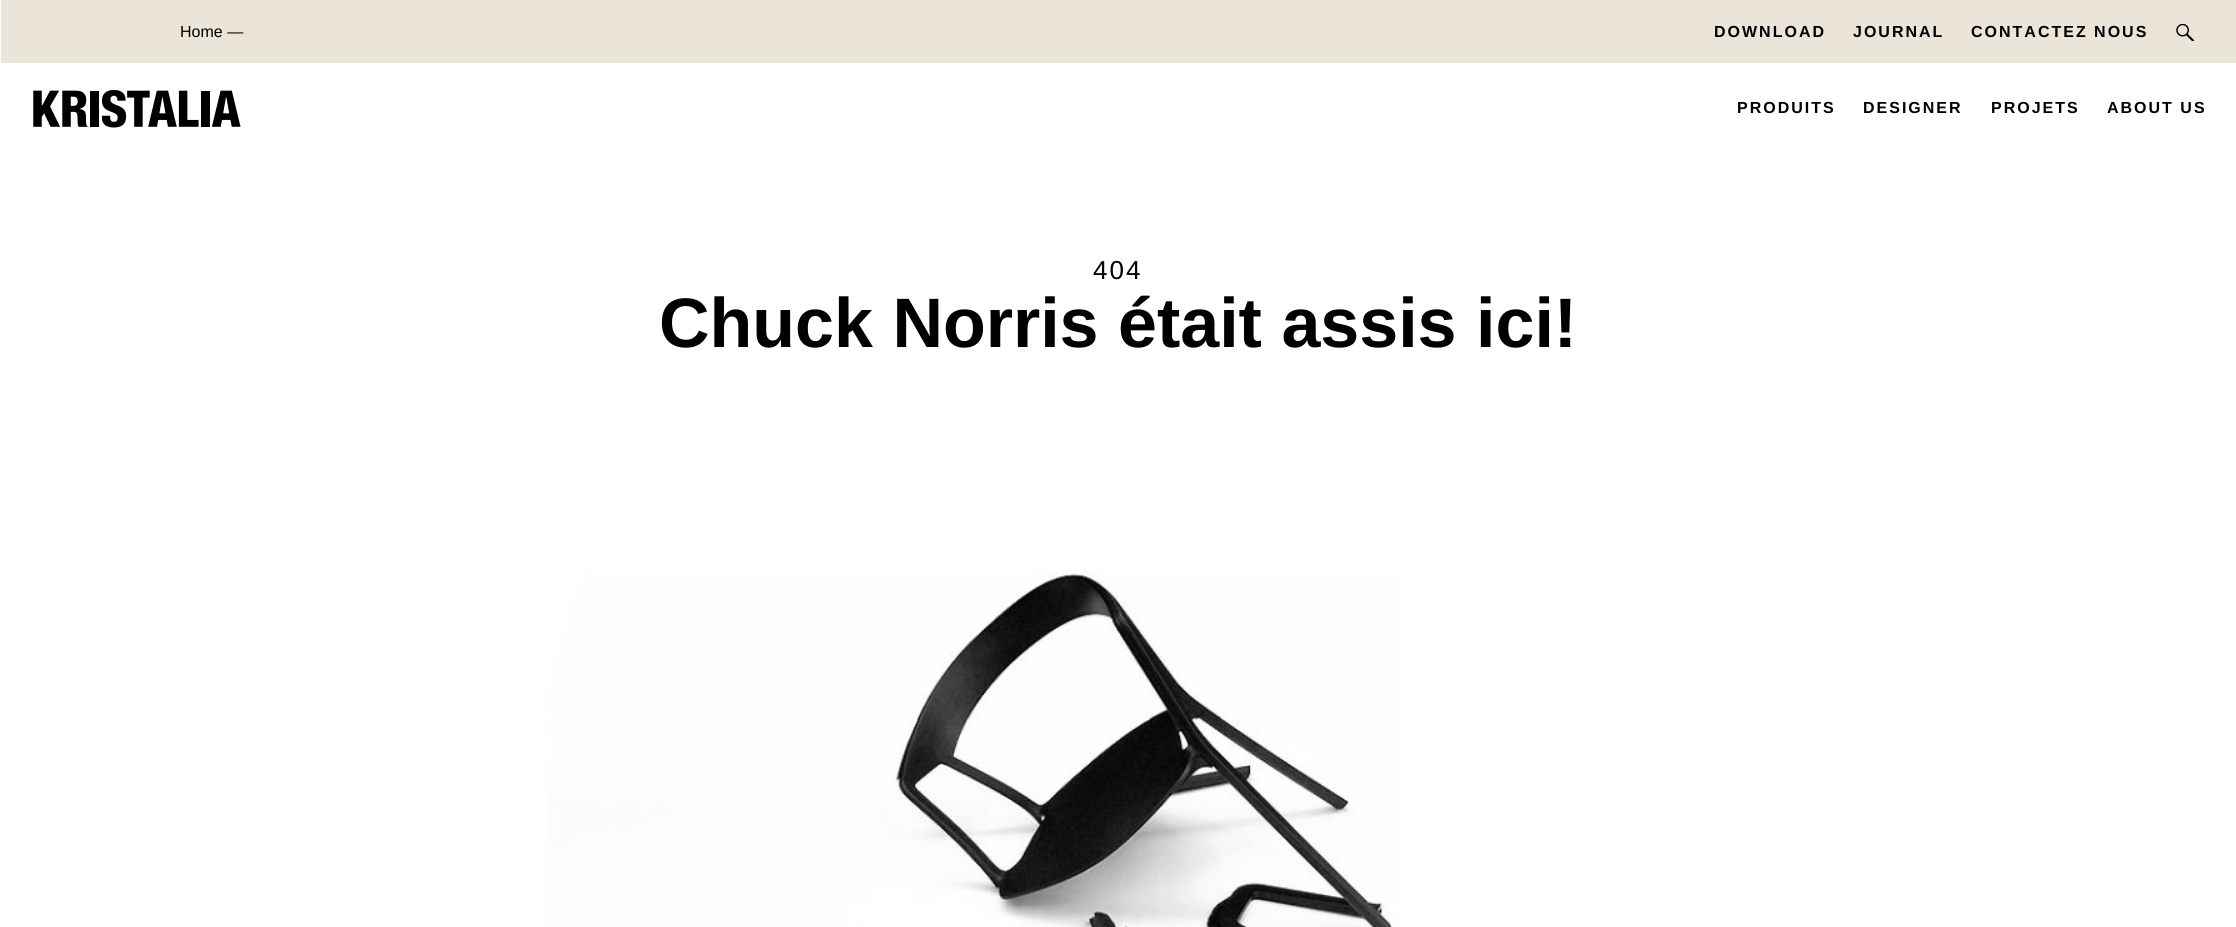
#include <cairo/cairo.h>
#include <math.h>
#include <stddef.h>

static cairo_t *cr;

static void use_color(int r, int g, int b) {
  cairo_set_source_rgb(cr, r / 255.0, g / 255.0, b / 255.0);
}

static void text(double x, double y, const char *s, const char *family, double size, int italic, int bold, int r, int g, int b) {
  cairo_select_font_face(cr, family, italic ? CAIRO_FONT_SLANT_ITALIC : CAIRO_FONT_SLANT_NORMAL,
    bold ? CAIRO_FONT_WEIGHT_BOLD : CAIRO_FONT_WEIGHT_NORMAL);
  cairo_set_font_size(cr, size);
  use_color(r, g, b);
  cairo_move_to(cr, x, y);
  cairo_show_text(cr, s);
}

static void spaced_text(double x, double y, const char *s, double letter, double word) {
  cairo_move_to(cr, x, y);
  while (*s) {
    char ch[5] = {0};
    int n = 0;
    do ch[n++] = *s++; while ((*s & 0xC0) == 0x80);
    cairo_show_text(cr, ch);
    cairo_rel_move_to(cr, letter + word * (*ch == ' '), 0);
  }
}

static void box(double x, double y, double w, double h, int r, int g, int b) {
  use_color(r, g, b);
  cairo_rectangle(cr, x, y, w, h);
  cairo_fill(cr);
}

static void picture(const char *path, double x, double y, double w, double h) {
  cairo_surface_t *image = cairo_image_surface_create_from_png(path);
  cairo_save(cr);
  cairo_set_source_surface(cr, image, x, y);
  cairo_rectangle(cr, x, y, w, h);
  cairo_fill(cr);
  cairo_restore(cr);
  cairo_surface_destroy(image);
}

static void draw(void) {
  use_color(255, 255, 255);
  cairo_paint(cr);
  box(1, 0, 2235, 63, 235, 229, 217);
  picture("img_01.png", 2176, 24, 18, 17);
  picture("img_02.png", 33, 90, 208, 38);
  picture("img_03.png", 548, 571, 850, 356);
  text(180, 37, "Home —", "Liberation Sans", 16, 0, 0, 0, 0, 0);
  cairo_select_font_face(cr, "Liberation Sans", CAIRO_FONT_SLANT_NORMAL, CAIRO_FONT_WEIGHT_BOLD);
  spaced_text(1714, 37, "DOWNLOAD", 2, 0);
  spaced_text(1853, 37, "JOURNAL", 2, 0);
  spaced_text(1971, 37, "CONTACTEZ NOUS", 2, 0);
  spaced_text(1737, 113, "PRODUITS", 2, 0);
  spaced_text(1863, 113, "DESIGNER", 2, 0);
  spaced_text(1991, 113, "PROJETS", 2, 0);
  spaced_text(2107, 113, "ABOUT US", 2, 0);
  cairo_select_font_face(cr, "Liberation Sans", CAIRO_FONT_SLANT_NORMAL, CAIRO_FONT_WEIGHT_NORMAL);
  cairo_set_font_size(cr, 26);
  spaced_text(1093, 279, "404", 2, 0);
  text(659, 347, "Chuck Norris était assis ici!", "Liberation Sans", 70, 0, 1, 0, 0, 0);
}

int main(void) {
  cairo_surface_t *surface = cairo_image_surface_create(CAIRO_FORMAT_RGB24, 2236, 927);
  cr = cairo_create(surface);
  cairo_font_options_t *options = cairo_font_options_create();
  cairo_font_options_set_hint_metrics(options, CAIRO_HINT_METRICS_OFF);
  cairo_font_options_set_hint_style(options, CAIRO_HINT_STYLE_NONE);
  cairo_set_font_options(cr, options);
  cairo_set_miter_limit(cr, 4);
  draw();
  cairo_surface_write_to_png(surface, "out.png");
  cairo_font_options_destroy(options);
  cairo_destroy(cr);
  cairo_surface_destroy(surface);
  return 0;
}
